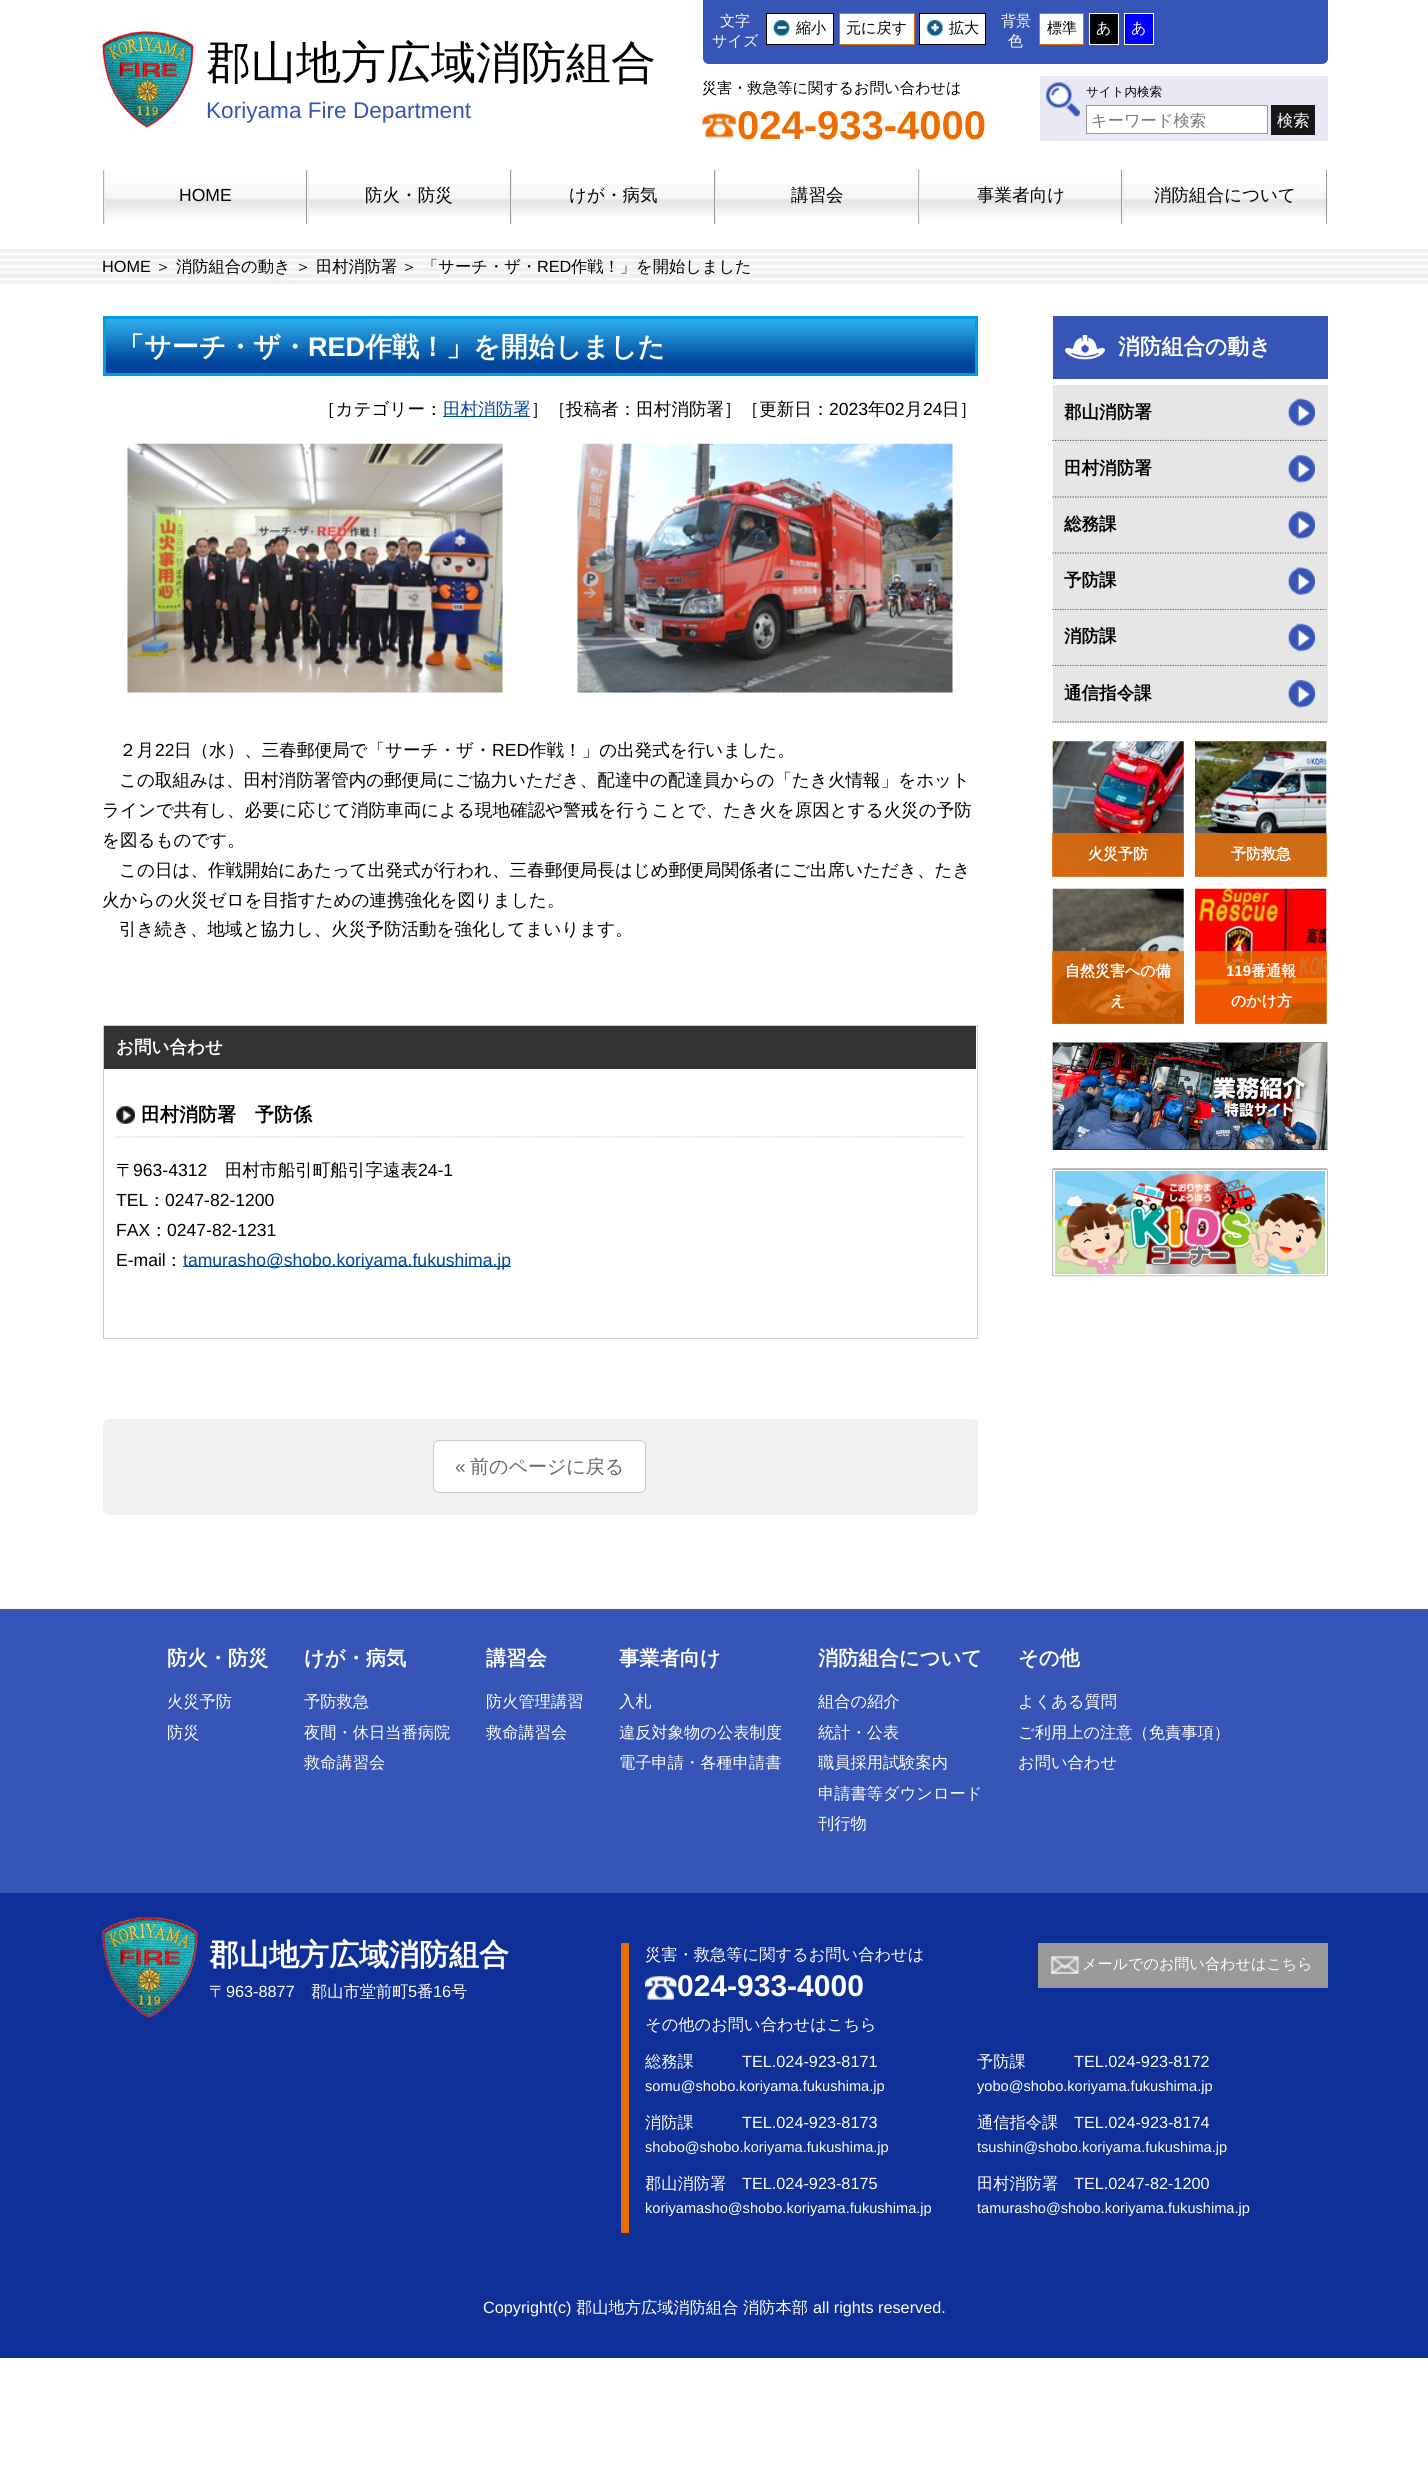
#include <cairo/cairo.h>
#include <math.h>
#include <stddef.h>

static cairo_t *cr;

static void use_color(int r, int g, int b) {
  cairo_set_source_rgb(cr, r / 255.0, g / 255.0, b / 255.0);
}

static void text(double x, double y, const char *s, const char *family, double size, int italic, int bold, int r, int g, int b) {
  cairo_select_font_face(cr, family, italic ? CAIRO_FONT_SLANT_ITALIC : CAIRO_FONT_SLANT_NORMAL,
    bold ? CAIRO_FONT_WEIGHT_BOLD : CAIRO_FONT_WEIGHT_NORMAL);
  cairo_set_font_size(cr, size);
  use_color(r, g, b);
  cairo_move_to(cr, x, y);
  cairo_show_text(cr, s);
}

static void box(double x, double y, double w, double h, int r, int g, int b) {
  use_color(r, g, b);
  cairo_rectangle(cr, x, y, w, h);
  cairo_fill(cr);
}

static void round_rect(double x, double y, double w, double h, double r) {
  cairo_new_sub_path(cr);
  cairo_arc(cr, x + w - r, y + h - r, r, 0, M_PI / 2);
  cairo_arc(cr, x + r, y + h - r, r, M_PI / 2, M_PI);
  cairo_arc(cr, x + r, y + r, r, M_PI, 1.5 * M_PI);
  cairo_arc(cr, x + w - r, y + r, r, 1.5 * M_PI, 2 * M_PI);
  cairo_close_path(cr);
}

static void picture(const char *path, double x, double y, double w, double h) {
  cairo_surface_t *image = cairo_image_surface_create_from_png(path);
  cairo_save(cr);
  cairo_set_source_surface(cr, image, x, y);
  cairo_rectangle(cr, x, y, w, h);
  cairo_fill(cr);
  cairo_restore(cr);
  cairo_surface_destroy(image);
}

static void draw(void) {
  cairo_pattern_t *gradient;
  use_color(255, 255, 255);
  cairo_paint(cr);
  picture("img_01.png", 102, 31, 92, 97);
  use_color(54, 85, 182);
  cairo_new_path(cr);
  cairo_move_to(cr, 703, 0);
  cairo_line_to(cr, 1328, 0);
  cairo_line_to(cr, 1328, 58);
  cairo_curve_to(cr, 1328, 61.5, 1325.5, 64, 1322, 64);
  cairo_line_to(cr, 709, 64);
  cairo_curve_to(cr, 705.5, 64, 703, 61.5, 703, 58);
  cairo_close_path(cr);
  cairo_fill(cr);
  box(767, 14, 66, 30, 255, 255, 255);
  picture("img_02.png", 773, 20, 17, 17);
  cairo_rectangle(cr, 766.5, 13.5, 67, 31);
  use_color(0, 0, 0);
  cairo_set_line_width(cr, 1);
  cairo_stroke(cr);
  use_color(255, 255, 255);
  cairo_rectangle(cr, 839.5, 13.5, 75, 31);
  cairo_fill_preserve(cr);
  use_color(237, 108, 0);
  cairo_stroke(cr);
  box(920, 14, 65, 30, 255, 255, 255);
  picture("img_03.png", 926, 20, 17, 17);
  cairo_rectangle(cr, 919.5, 13.5, 66, 31);
  use_color(0, 0, 0);
  cairo_stroke(cr);
  use_color(255, 255, 255);
  cairo_rectangle(cr, 1039.5, 13.5, 44, 31);
  cairo_fill_preserve(cr);
  use_color(237, 108, 0);
  cairo_stroke(cr);
  use_color(0, 0, 0);
  cairo_rectangle(cr, 1089.5, 13.5, 29, 31);
  cairo_fill_preserve(cr);
  use_color(255, 255, 255);
  cairo_stroke(cr);
  use_color(0, 0, 255);
  cairo_rectangle(cr, 1124.5, 13.5, 29, 31);
  cairo_fill_preserve(cr);
  use_color(255, 255, 255);
  cairo_stroke(cr);
  picture("img_04.png", 702, 113, 35, 25);
  box(1040, 76, 288, 65, 233, 233, 245);
  picture("img_05.png", 1046, 82, 34, 35);
  use_color(255, 255, 255);
  cairo_rectangle(cr, 1086.5, 105.5, 181, 28);
  cairo_fill_preserve(cr);
  use_color(153, 153, 153);
  cairo_stroke(cr);
  box(1271, 105, 44, 30, 23, 23, 23);
  box(103, 170, 1, 54, 153, 153, 153);
  picture("img_06.png", 103, 170, 205, 54);
  box(306, 170, 1, 54, 153, 153, 153);
  box(104, 170, 1, 54, 238, 238, 238);
  picture("img_07.png", 307, 184, 203, 33);
  box(510, 170, 1, 54, 153, 153, 153);
  box(308, 170, 1, 54, 238, 238, 238);
  picture("img_08.png", 512, 184, 202, 33);
  box(714, 170, 1, 54, 153, 153, 153);
  box(511, 170, 1, 54, 238, 238, 238);
  picture("img_08.png", 716, 184, 202, 33);
  box(918, 170, 1, 54, 153, 153, 153);
  box(715, 170, 1, 54, 238, 238, 238);
  picture("img_06.png", 918, 170, 205, 54);
  box(1121, 170, 1, 54, 153, 153, 153);
  box(919, 170, 1, 54, 238, 238, 238);
  picture("img_09.png", 1122, 184, 206, 33);
  box(1326, 170, 1, 54, 153, 153, 153);
  box(1123, 170, 1, 54, 238, 238, 238);
  picture("img_10.png", 0, 249, 1428, 36);
  gradient = cairo_pattern_create_linear(540, 319, 540, 374);
  cairo_pattern_add_color_stop_rgba(gradient, 0, 0.184, 0.698, 0.929, 1);
  cairo_pattern_add_color_stop_rgba(gradient, 0.8, 0, 0.267, 0.608, 1);
  cairo_set_source(cr, gradient);
  cairo_pattern_destroy(gradient);
  cairo_rectangle(cr, 106, 319, 869, 54);
  cairo_fill(cr);
  cairo_rectangle(cr, 104.5, 317.5, 872, 57);
  use_color(0, 156, 229);
  cairo_set_line_width(cr, 3);
  cairo_stroke(cr);
  box(443, 416, 87, 1, 2, 71, 158);
  picture("img_11.png", 127, 443, 376, 250);
  picture("img_12.png", 577, 443, 376, 250);
  cairo_rectangle(cr, 103.5, 1025.5, 874, 313);
  use_color(204, 204, 204);
  cairo_set_line_width(cr, 1);
  cairo_stroke(cr);
  box(104, 1026, 872, 43, 51, 51, 51);
  picture("img_13.png", 116, 1106, 19, 18);
  cairo_new_path(cr);
  cairo_move_to(cr, 116, 1137);
  cairo_line_to(cr, 964, 1137);
  use_color(204, 204, 204);
  cairo_set_line_width(cr, 1.2);
  cairo_set_dash(cr, (double[]){1.25, 1.25}, 2, 0);
  cairo_stroke(cr);
  box(183, 1266, 328, 1, 2, 71, 158);
  use_color(240, 240, 240);
  round_rect(103, 1419, 875, 96, 6);
  cairo_fill(cr);
  use_color(255, 255, 255);
  round_rect(433.5, 1440.5, 212, 52, 5.5);
  cairo_fill_preserve(cr);
  use_color(204, 204, 204);
  cairo_set_line_width(cr, 1);
  cairo_set_dash(cr, NULL, 0, 0);
  cairo_stroke(cr);
  box(1053, 316, 275, 63, 54, 85, 182);
  picture("img_14.png", 1065, 335, 40, 25);
  box(1053, 385, 275, 56, 230, 230, 230);
  picture("img_15.png", 1288, 398, 27, 29);
  cairo_new_path(cr);
  cairo_move_to(cr, 1052.5, 440.5);
  cairo_line_to(cr, 1327.5, 440.5);
  use_color(102, 102, 102);
  cairo_set_line_width(cr, 1.2);
  cairo_set_dash(cr, (double[]){1.25, 1.25}, 2, 0);
  cairo_stroke(cr);
  box(1053, 441, 275, 169, 230, 230, 230);
  picture("img_16.png", 1288, 455, 27, 28);
  cairo_new_path(cr);
  cairo_move_to(cr, 1052.5, 497);
  cairo_line_to(cr, 1327.5, 497);
  use_color(102, 102, 102);
  cairo_stroke(cr);
  picture("img_17.png", 1288, 511, 27, 28);
  cairo_new_path(cr);
  cairo_move_to(cr, 1052.5, 553);
  cairo_line_to(cr, 1327.5, 553);
  cairo_stroke(cr);
  picture("img_18.png", 1288, 567, 27, 28);
  cairo_new_path(cr);
  cairo_move_to(cr, 1052.5, 609.5);
  cairo_line_to(cr, 1327.5, 609.5);
  cairo_stroke(cr);
  box(1053, 610, 275, 56, 230, 230, 230);
  picture("img_15.png", 1288, 623, 27, 29);
  cairo_new_path(cr);
  cairo_move_to(cr, 1052.5, 665.5);
  cairo_line_to(cr, 1327.5, 665.5);
  use_color(102, 102, 102);
  cairo_stroke(cr);
  box(1053, 666, 275, 57, 230, 230, 230);
  picture("img_16.png", 1288, 680, 27, 28);
  cairo_new_path(cr);
  cairo_move_to(cr, 1052.5, 722);
  cairo_line_to(cr, 1327.5, 722);
  use_color(102, 102, 102);
  cairo_stroke(cr);
  picture("img_19.png", 1052, 741, 132, 136);
  cairo_set_source_rgba(cr, 0.929, 0.42, 0, 0.8);
  cairo_rectangle(cr, 1052, 833, 132, 44);
  cairo_fill(cr);
  picture("img_20.png", 1195, 741, 132, 136);
  cairo_rectangle(cr, 1195, 833, 132, 44);
  cairo_fill(cr);
  picture("img_21.png", 1052, 888, 132, 136);
  cairo_rectangle(cr, 1052, 951, 132, 73);
  cairo_fill(cr);
  picture("img_22.png", 1195, 888, 132, 136);
  cairo_rectangle(cr, 1195, 951, 132, 73);
  cairo_fill(cr);
  picture("img_23.png", 1052, 1042, 276, 108);
  picture("img_24.png", 1052, 1168, 276, 109);
  box(0, 1609, 1428, 284, 54, 85, 182);
  box(0, 1893, 1428, 465, 14, 48, 152);
  picture("img_25.png", 102, 1917, 96, 101);
  box(621, 1943, 8, 290, 237, 108, 0);
  box(1038, 1943, 290, 45, 153, 153, 153);
  picture("img_26.png", 1051, 1956, 28, 18);
  picture("img_27.png", 645, 1976, 33, 24);
  text(206, 78, "郡山地方広域消防組合", "WenQuanYi Zen Hei Medium", 45, 0, 0, 0, 0, 0);
  text(206, 118, "Koriyama Fire Department", "Liberation Sans", 22.6, 0, 0, 54, 85, 182);
  text(720, 26, "文字", "WenQuanYi Zen Hei Medium", 15.1, 0, 0, 255, 255, 255);
  text(712, 46, "サイズ", "WenQuanYi Zen Hei Medium", 15.1, 0, 0, 255, 255, 255);
  text(796, 33, "縮小", "WenQuanYi Zen Hei Medium", 15.1, 0, 0, 0, 0, 0);
  text(846, 33, "元に戻す", "WenQuanYi Zen Hei Medium", 15.1, 0, 0, 0, 0, 0);
  text(949, 33, "拡大", "WenQuanYi Zen Hei Medium", 15.1, 0, 0, 0, 0, 0);
  text(1001, 26, "背景", "WenQuanYi Zen Hei Medium", 15.1, 0, 0, 255, 255, 255);
  text(1008, 46, "色", "WenQuanYi Zen Hei Medium", 15.1, 0, 0, 255, 255, 255);
  text(1047, 33, "標準", "WenQuanYi Zen Hei Medium", 15.1, 0, 0, 0, 0, 0);
  text(1096, 33, "あ", "WenQuanYi Zen Hei Medium", 15.1, 0, 0, 255, 255, 255);
  text(1131, 33, "あ", "WenQuanYi Zen Hei Medium", 15.1, 0, 0, 255, 255, 255);
  text(702, 93, "災害・救急等に関するお問い合わせは", "WenQuanYi Zen Hei Medium", 15.1, 0, 0, 0, 0, 0);
  text(737, 139, "024-933-4000", "Liberation Sans", 40, 0, 1, 237, 108, 0);
  text(1086, 96, "サイト内検索", "WenQuanYi Zen Hei Medium", 12.5, 0, 0, 0, 0, 0);
  text(1091, 126, "キーワード検索", "WenQuanYi Zen Hei Medium", 16.25, 0, 0, 117, 117, 117);
  text(1277, 126, "検索", "WenQuanYi Zen Hei Medium", 16.25, 0, 0, 255, 255, 255);
  text(179, 201, "HOME", "Liberation Sans", 17.55, 0, 0, 0, 0, 0);
  text(365, 201, "防火・防災", "WenQuanYi Zen Hei Medium", 17.55, 0, 0, 0, 0, 0);
  text(569, 201, "けが・病気", "WenQuanYi Zen Hei Medium", 17.55, 0, 0, 0, 0, 0);
  text(791, 201, "講習会", "WenQuanYi Zen Hei Medium", 17.55, 0, 0, 0, 0, 0);
  text(977, 201, "事業者向け", "WenQuanYi Zen Hei Medium", 17.55, 0, 0, 0, 0, 0);
  text(1154, 201, "消防組合について", "WenQuanYi Zen Hei Medium", 17.55, 0, 0, 0, 0, 0);
  text(102, 272, "HOME", "Liberation Sans", 16.25, 0, 0, 0, 0, 0);
  text(155, 272, "＞", "WenQuanYi Zen Hei Medium", 16.25, 0, 0, 0, 0, 0);
  text(176, 272, "消防組合の動き", "WenQuanYi Zen Hei Medium", 16.25, 0, 0, 0, 0, 0);
  text(295, 272, "＞", "WenQuanYi Zen Hei Medium", 16.25, 0, 0, 0, 0, 0);
  text(316, 272, "田村消防署", "WenQuanYi Zen Hei Medium", 16.25, 0, 0, 0, 0, 0);
  text(401, 272, "＞ 「サーチ・ザ・", "WenQuanYi Zen Hei Medium", 16.25, 0, 0, 0, 0, 0);
  text(537, 272, "RED", "Liberation Sans", 16.25, 0, 0, 0, 0, 0);
  text(571, 272, "作戦！」を開始しました", "WenQuanYi Zen Hei Medium", 16.25, 0, 0, 0, 0, 0);
  text(117, 356, "「サーチ・ザ・", "WenQuanYi Zen Hei", 27, 0, 1, 255, 255, 255);
  text(308, 356, "RED", "Liberation Sans", 27, 0, 1, 255, 255, 255);
  text(365, 356, "作戦！」を開始しました", "WenQuanYi Zen Hei", 27, 0, 1, 255, 255, 255);
  text(318, 415, "［カテゴリー：", "WenQuanYi Zen Hei Medium", 17.55, 0, 0, 0, 0, 0);
  text(443, 415, "田村消防署", "WenQuanYi Zen Hei Medium", 17.55, 0, 0, 2, 71, 158);
  text(531, 415, "］［投稿者：田村消防署］［更新日：", "WenQuanYi Zen Hei Medium", 17.55, 0, 0, 0, 0, 0);
  text(829, 415, "2023", "Liberation Sans", 17.55, 0, 0, 0, 0, 0);
  text(868, 415, "年", "WenQuanYi Zen Hei Medium", 17.55, 0, 0, 0, 0, 0);
  text(885, 415, "02", "Liberation Sans", 17.55, 0, 0, 0, 0, 0);
  text(905, 415, "月", "WenQuanYi Zen Hei Medium", 17.55, 0, 0, 0, 0, 0);
  text(923, 415, "24", "Liberation Sans", 17.55, 0, 0, 0, 0, 0);
  text(942, 415, "日］", "WenQuanYi Zen Hei Medium", 17.55, 0, 0, 0, 0, 0);
  text(119, 756, "２月", "WenQuanYi Zen Hei Medium", 17.55, 0, 0, 0, 0, 0);
  text(155, 756, "22", "Liberation Sans", 17.55, 0, 0, 0, 0, 0);
  text(174, 756, "日（水）、三春郵便局で「サーチ・ザ・", "WenQuanYi Zen Hei Medium", 17.55, 0, 0, 0, 0, 0);
  text(492, 756, "RED", "Liberation Sans", 17.55, 0, 0, 0, 0, 0);
  text(529, 756, "作戦！」の出発式を行いました。", "WenQuanYi Zen Hei Medium", 17.55, 0, 0, 0, 0, 0);
  text(119, 786, "この取組みは、田村消防署管内の郵便局にご協力いただき、配達中の配達員からの「たき火情報」をホット", "WenQuanYi Zen Hei Medium", 17.55, 0, 0, 0, 0, 0);
  text(102, 816, "ラインで共有し、必要に応じて消防車両による現地確認や警戒を行うことで、たき火を原因とする火災の予防", "WenQuanYi Zen Hei Medium", 17.55, 0, 0, 0, 0, 0);
  text(102, 846, "を図るものです。", "WenQuanYi Zen Hei Medium", 17.55, 0, 0, 0, 0, 0);
  text(119, 876, "この日は、作戦開始にあたって出発式が行われ、三春郵便局長はじめ郵便局関係者にご出席いただき、たき", "WenQuanYi Zen Hei Medium", 17.55, 0, 0, 0, 0, 0);
  text(102, 906, "火からの火災ゼロを目指すための連携強化を図りました。", "WenQuanYi Zen Hei Medium", 17.55, 0, 0, 0, 0, 0);
  text(119, 935, "引き続き、地域と協力し、火災予防活動を強化してまいります。", "WenQuanYi Zen Hei Medium", 17.55, 0, 0, 0, 0, 0);
  text(116, 1053, "お問い合わせ", "WenQuanYi Zen Hei", 17.55, 0, 1, 255, 255, 255);
  text(141, 1121, "田村消防署　予防係", "WenQuanYi Zen Hei", 19, 0, 1, 0, 0, 0);
  text(116, 1176, "〒", "WenQuanYi Zen Hei Medium", 17.55, 0, 0, 0, 0, 0);
  text(133, 1176, "963-4312", "Liberation Sans", 17.55, 0, 0, 0, 0, 0);
  text(225, 1176, "田村市船引町船引字遠表", "WenQuanYi Zen Hei Medium", 17.55, 0, 0, 0, 0, 0);
  text(418, 1176, "24-1", "Liberation Sans", 17.55, 0, 0, 0, 0, 0);
  text(116, 1206, "TEL", "Liberation Sans", 17.55, 0, 0, 0, 0, 0);
  text(148, 1206, "：", "WenQuanYi Zen Hei Medium", 17.55, 0, 0, 0, 0, 0);
  text(165, 1206, "0247-82-1200", "Liberation Sans", 17.55, 0, 0, 0, 0, 0);
  text(116, 1236, "FAX", "Liberation Sans", 17.55, 0, 0, 0, 0, 0);
  text(150, 1236, "：", "WenQuanYi Zen Hei Medium", 17.55, 0, 0, 0, 0, 0);
  text(167, 1236, "0247-82-1231", "Liberation Sans", 17.55, 0, 0, 0, 0, 0);
  text(116, 1266, "E-mail", "Liberation Sans", 17.55, 0, 0, 0, 0, 0);
  text(165, 1266, "：", "WenQuanYi Zen Hei Medium", 17.55, 0, 0, 0, 0, 0);
  text(183, 1266, "tamurasho@shobo.koriyama.fukushima.jp", "Liberation Sans", 17.55, 0, 0, 2, 71, 158);
  text(455, 1473, "«", "Liberation Sans", 19, 0, 0, 102, 102, 102);
  text(470, 1473, "前のページに戻る", "WenQuanYi Zen Hei Medium", 19, 0, 0, 102, 102, 102);
  text(1118, 354, "消防組合の動き", "WenQuanYi Zen Hei", 21.75, 0, 1, 255, 255, 255);
  text(1064, 418, "郡山消防署", "WenQuanYi Zen Hei", 17.55, 0, 1, 0, 0, 0);
  text(1064, 474, "田村消防署", "WenQuanYi Zen Hei", 17.55, 0, 1, 0, 0, 0);
  text(1064, 530, "総務課", "WenQuanYi Zen Hei", 17.55, 0, 1, 0, 0, 0);
  text(1064, 586, "予防課", "WenQuanYi Zen Hei", 17.55, 0, 1, 0, 0, 0);
  text(1064, 642, "消防課", "WenQuanYi Zen Hei", 17.55, 0, 1, 0, 0, 0);
  text(1064, 699, "通信指令課", "WenQuanYi Zen Hei", 17.55, 0, 1, 0, 0, 0);
  text(1088, 859, "火災予防", "WenQuanYi Zen Hei", 15, 0, 1, 255, 255, 255);
  text(1231, 859, "予防救急", "WenQuanYi Zen Hei", 15, 0, 1, 255, 255, 255);
  text(1065, 976, "自然災害への備", "WenQuanYi Zen Hei", 15, 0, 1, 255, 255, 255);
  text(1110, 1006, "え", "WenQuanYi Zen Hei", 15, 0, 1, 255, 255, 255);
  text(1226, 976, "119", "Liberation Sans", 15, 0, 1, 255, 255, 255);
  text(1251, 976, "番通報", "WenQuanYi Zen Hei", 15, 0, 1, 255, 255, 255);
  text(1231, 1006, "のかけ方", "WenQuanYi Zen Hei", 15, 0, 1, 255, 255, 255);
  text(167, 1665, "防火・防災", "WenQuanYi Zen Hei", 20.25, 0, 1, 255, 255, 255);
  text(167, 1707, "火災予防", "WenQuanYi Zen Hei Medium", 16.25, 0, 0, 255, 255, 255);
  text(167, 1738, "防災", "WenQuanYi Zen Hei Medium", 16.25, 0, 0, 255, 255, 255);
  text(304, 1665, "けが・病気", "WenQuanYi Zen Hei", 20.25, 0, 1, 255, 255, 255);
  text(304, 1707, "予防救急", "WenQuanYi Zen Hei Medium", 16.25, 0, 0, 255, 255, 255);
  text(304, 1738, "夜間・休日当番病院", "WenQuanYi Zen Hei Medium", 16.25, 0, 0, 255, 255, 255);
  text(304, 1768, "救命講習会", "WenQuanYi Zen Hei Medium", 16.25, 0, 0, 255, 255, 255);
  text(486, 1665, "講習会", "WenQuanYi Zen Hei", 20.25, 0, 1, 255, 255, 255);
  text(486, 1707, "防火管理講習", "WenQuanYi Zen Hei Medium", 16.25, 0, 0, 255, 255, 255);
  text(486, 1738, "救命講習会", "WenQuanYi Zen Hei Medium", 16.25, 0, 0, 255, 255, 255);
  text(619, 1665, "事業者向け", "WenQuanYi Zen Hei", 20.25, 0, 1, 255, 255, 255);
  text(619, 1707, "入札", "WenQuanYi Zen Hei Medium", 16.25, 0, 0, 255, 255, 255);
  text(619, 1738, "違反対象物の公表制度", "WenQuanYi Zen Hei Medium", 16.25, 0, 0, 255, 255, 255);
  text(619, 1768, "電子申請・各種申請書", "WenQuanYi Zen Hei Medium", 16.25, 0, 0, 255, 255, 255);
  text(818, 1665, "消防組合について", "WenQuanYi Zen Hei", 20.25, 0, 1, 255, 255, 255);
  text(818, 1707, "組合の紹介", "WenQuanYi Zen Hei Medium", 16.25, 0, 0, 255, 255, 255);
  text(818, 1738, "統計・公表", "WenQuanYi Zen Hei Medium", 16.25, 0, 0, 255, 255, 255);
  text(818, 1768, "職員採用試験案内", "WenQuanYi Zen Hei Medium", 16.25, 0, 0, 255, 255, 255);
  text(818, 1799, "申請書等ダウンロード", "WenQuanYi Zen Hei Medium", 16.25, 0, 0, 255, 255, 255);
  text(818, 1829, "刊行物", "WenQuanYi Zen Hei Medium", 16.25, 0, 0, 255, 255, 255);
  text(1018, 1665, "その他", "WenQuanYi Zen Hei", 20.25, 0, 1, 255, 255, 255);
  text(1018, 1707, "よくある質問", "WenQuanYi Zen Hei Medium", 16.25, 0, 0, 255, 255, 255);
  text(1018, 1738, "ご利用上の注意（免責事項）", "WenQuanYi Zen Hei Medium", 16.25, 0, 0, 255, 255, 255);
  text(1018, 1768, "お問い合わせ", "WenQuanYi Zen Hei Medium", 16.25, 0, 0, 255, 255, 255);
  text(209, 1965, "郡山地方広域消防組合", "WenQuanYi Zen Hei", 30, 0, 1, 255, 255, 255);
  text(209, 1997, "〒", "WenQuanYi Zen Hei Medium", 16.25, 0, 0, 255, 255, 255);
  text(226, 1997, "963-8877", "Liberation Sans", 16.25, 0, 0, 255, 255, 255);
  text(311, 1997, "郡山市堂前町", "WenQuanYi Zen Hei Medium", 16.25, 0, 0, 255, 255, 255);
  text(408, 1997, "5", "Liberation Sans", 16.25, 0, 0, 255, 255, 255);
  text(417, 1997, "番", "WenQuanYi Zen Hei Medium", 16.25, 0, 0, 255, 255, 255);
  text(433, 1997, "16", "Liberation Sans", 16.25, 0, 0, 255, 255, 255);
  text(451, 1997, "号", "WenQuanYi Zen Hei Medium", 16.25, 0, 0, 255, 255, 255);
  text(645, 1960, "災害・救急等に関するお問い合わせは", "WenQuanYi Zen Hei Medium", 16.25, 0, 0, 255, 255, 255);
  text(1082, 1969, "メールでのお問い合わせはこちら", "WenQuanYi Zen Hei Medium", 15.1, 0, 0, 255, 255, 255);
  text(677, 1996, "024-933-4000", "Liberation Sans", 30, 0, 1, 255, 255, 255);
  text(645, 2030, "その他のお問い合わせはこちら", "WenQuanYi Zen Hei Medium", 16.25, 0, 0, 255, 255, 255);
  text(645, 2067, "総務課", "WenQuanYi Zen Hei Medium", 16.25, 0, 0, 255, 255, 255);
  text(742, 2067, "TEL.024-923-8171", "Liberation Sans", 16.25, 0, 0, 255, 255, 255);
  text(645, 2091, "somu@shobo.koriyama.fukushima.jp", "Liberation Sans", 14.6, 0, 0, 255, 255, 255);
  text(977, 2067, "予防課", "WenQuanYi Zen Hei Medium", 16.25, 0, 0, 255, 255, 255);
  text(1074, 2067, "TEL.024-923-8172", "Liberation Sans", 16.25, 0, 0, 255, 255, 255);
  text(977, 2091, "yobo@shobo.koriyama.fukushima.jp", "Liberation Sans", 14.6, 0, 0, 255, 255, 255);
  text(645, 2128, "消防課", "WenQuanYi Zen Hei Medium", 16.25, 0, 0, 255, 255, 255);
  text(742, 2128, "TEL.024-923-8173", "Liberation Sans", 16.25, 0, 0, 255, 255, 255);
  text(645, 2152, "shobo@shobo.koriyama.fukushima.jp", "Liberation Sans", 14.6, 0, 0, 255, 255, 255);
  text(977, 2128, "通信指令課", "WenQuanYi Zen Hei Medium", 16.25, 0, 0, 255, 255, 255);
  text(1074, 2128, "TEL.024-923-8174", "Liberation Sans", 16.25, 0, 0, 255, 255, 255);
  text(977, 2152, "tsushin@shobo.koriyama.fukushima.jp", "Liberation Sans", 14.6, 0, 0, 255, 255, 255);
  text(645, 2189, "郡山消防署", "WenQuanYi Zen Hei Medium", 16.25, 0, 0, 255, 255, 255);
  text(742, 2189, "TEL.024-923-8175", "Liberation Sans", 16.25, 0, 0, 255, 255, 255);
  text(645, 2213, "koriyamasho@shobo.koriyama.fukushima.jp", "Liberation Sans", 14.6, 0, 0, 255, 255, 255);
  text(977, 2189, "田村消防署", "WenQuanYi Zen Hei Medium", 16.25, 0, 0, 255, 255, 255);
  text(1074, 2189, "TEL.0247-82-1200", "Liberation Sans", 16.25, 0, 0, 255, 255, 255);
  text(977, 2213, "tamurasho@shobo.koriyama.fukushima.jp", "Liberation Sans", 14.6, 0, 0, 255, 255, 255);
  text(483, 2313, "Copyright(c)", "Liberation Sans", 16.25, 0, 0, 255, 255, 255);
  text(576, 2313, "郡山地方広域消防組合", "WenQuanYi Zen Hei Medium", 16.25, 0, 0, 255, 255, 255);
  text(743, 2313, "消防本部", "WenQuanYi Zen Hei Medium", 16.25, 0, 0, 255, 255, 255);
  text(813, 2313, "all rights reserved.", "Liberation Sans", 16.25, 0, 0, 255, 255, 255);
}

int main(void) {
  cairo_surface_t *surface = cairo_image_surface_create(CAIRO_FORMAT_RGB24, 1428, 2475);
  cr = cairo_create(surface);
  cairo_font_options_t *options = cairo_font_options_create();
  cairo_font_options_set_hint_metrics(options, CAIRO_HINT_METRICS_OFF);
  cairo_font_options_set_hint_style(options, CAIRO_HINT_STYLE_NONE);
  cairo_set_font_options(cr, options);
  cairo_set_miter_limit(cr, 4);
  draw();
  cairo_surface_write_to_png(surface, "out.png");
  cairo_font_options_destroy(options);
  cairo_destroy(cr);
  cairo_surface_destroy(surface);
  return 0;
}
